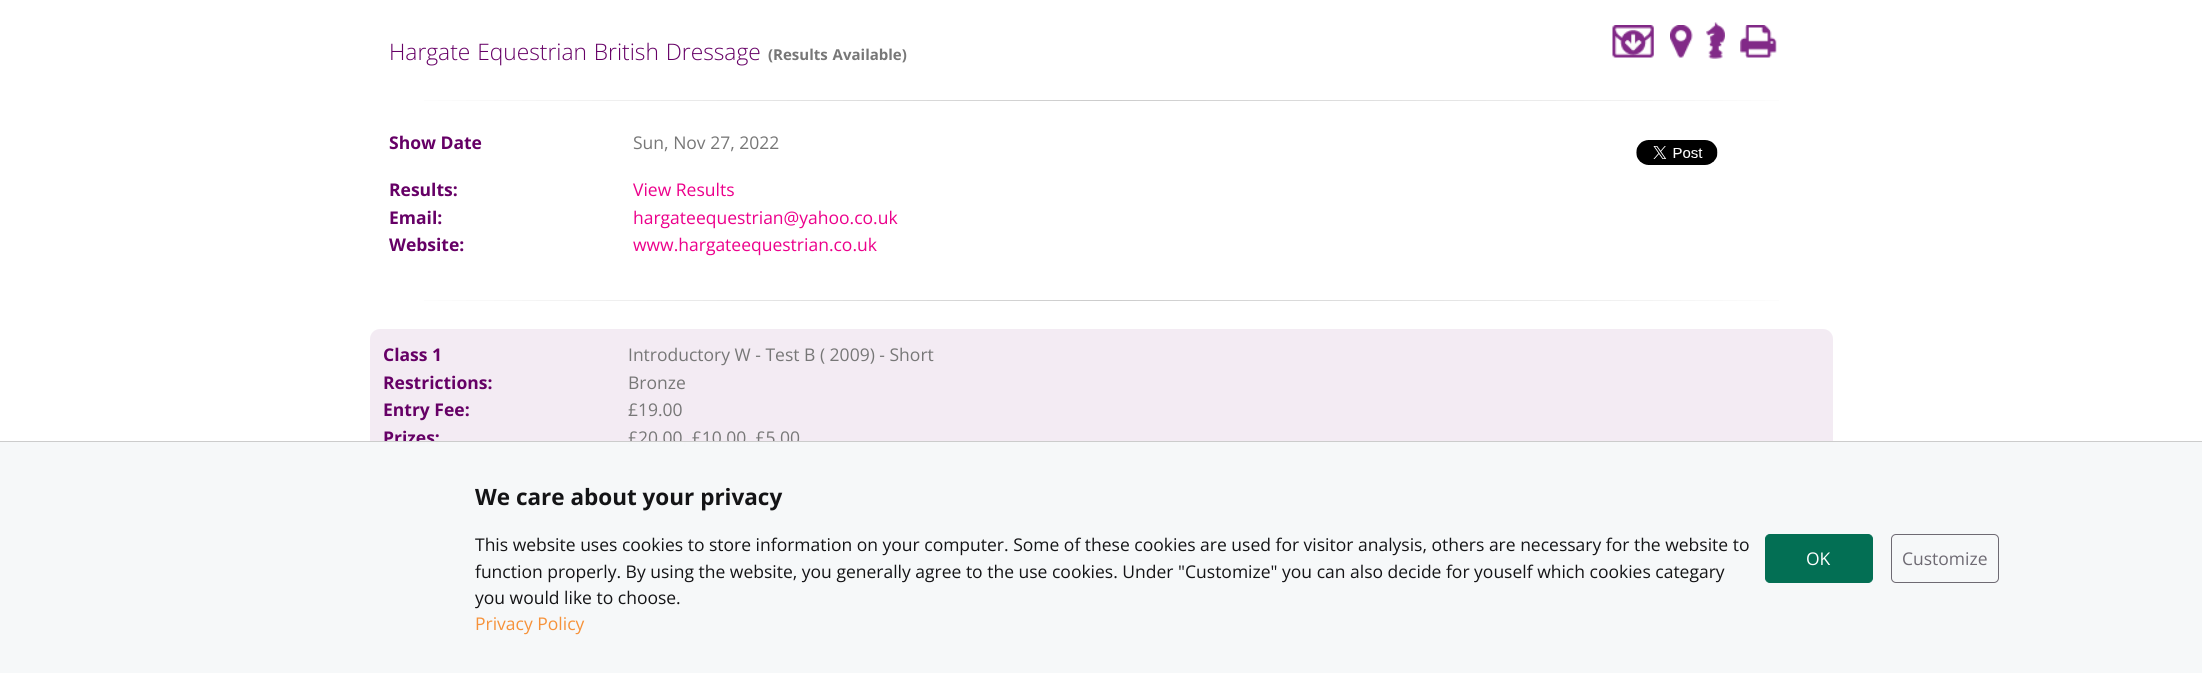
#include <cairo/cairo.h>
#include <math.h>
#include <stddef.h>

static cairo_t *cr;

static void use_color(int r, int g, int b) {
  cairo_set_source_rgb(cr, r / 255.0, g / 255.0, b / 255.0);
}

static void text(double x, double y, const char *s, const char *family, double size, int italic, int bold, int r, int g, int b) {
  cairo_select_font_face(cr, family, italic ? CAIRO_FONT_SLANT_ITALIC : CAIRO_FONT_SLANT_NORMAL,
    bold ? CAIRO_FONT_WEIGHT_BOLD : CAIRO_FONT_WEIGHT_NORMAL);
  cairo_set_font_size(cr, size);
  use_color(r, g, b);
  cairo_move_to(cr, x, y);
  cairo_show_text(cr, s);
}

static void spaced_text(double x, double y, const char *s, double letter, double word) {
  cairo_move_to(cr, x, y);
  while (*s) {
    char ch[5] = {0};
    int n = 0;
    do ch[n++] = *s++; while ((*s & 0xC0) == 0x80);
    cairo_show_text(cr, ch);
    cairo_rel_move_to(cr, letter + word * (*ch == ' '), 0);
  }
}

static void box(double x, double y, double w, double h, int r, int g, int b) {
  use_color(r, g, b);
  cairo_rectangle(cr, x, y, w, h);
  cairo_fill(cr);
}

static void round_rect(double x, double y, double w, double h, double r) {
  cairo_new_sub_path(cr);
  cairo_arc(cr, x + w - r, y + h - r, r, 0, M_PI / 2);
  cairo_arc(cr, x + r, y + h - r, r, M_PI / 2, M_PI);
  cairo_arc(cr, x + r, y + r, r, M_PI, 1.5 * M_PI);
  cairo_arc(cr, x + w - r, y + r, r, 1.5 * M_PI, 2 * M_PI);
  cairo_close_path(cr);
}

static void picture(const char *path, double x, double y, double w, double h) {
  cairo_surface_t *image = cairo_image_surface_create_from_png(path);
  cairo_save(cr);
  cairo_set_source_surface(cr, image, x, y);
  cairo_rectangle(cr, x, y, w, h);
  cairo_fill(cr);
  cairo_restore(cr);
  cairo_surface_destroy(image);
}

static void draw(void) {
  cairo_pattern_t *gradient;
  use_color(255, 255, 255);
  cairo_paint(cr);
  picture("img_01.png", 1612, 25, 42, 33);
  picture("img_02.png", 1670, 25, 23, 33);
  picture("img_03.png", 1706, 22, 19, 37);
  picture("img_04.png", 1740, 25, 37, 33);
  gradient = cairo_pattern_create_linear(389, 101, 1814, 101);
  cairo_pattern_add_color_stop_rgba(gradient, 0, 1, 1, 1, 1);
  cairo_pattern_add_color_stop_rgba(gradient, 0.5, 0.8, 0.8, 0.8, 1);
  cairo_pattern_add_color_stop_rgba(gradient, 1, 1, 1, 1, 1);
  cairo_set_source(cr, gradient);
  cairo_pattern_destroy(gradient);
  cairo_rectangle(cr, 424, 100, 1355, 1);
  cairo_fill(cr);
  picture("img_05.png", 1636, 140, 82, 25);
  gradient = cairo_pattern_create_linear(389, 301, 1814, 301);
  cairo_pattern_add_color_stop_rgba(gradient, 0, 1, 1, 1, 1);
  cairo_pattern_add_color_stop_rgba(gradient, 0.5, 0.8, 0.8, 0.8, 1);
  cairo_pattern_add_color_stop_rgba(gradient, 1, 1, 1, 1, 1);
  cairo_set_source(cr, gradient);
  cairo_pattern_destroy(gradient);
  cairo_rectangle(cr, 424, 300, 1355, 1);
  cairo_fill(cr);
  use_color(243, 235, 243);
  round_rect(370, 329, 1463, 135, 10);
  cairo_fill(cr);
  round_rect(370, 599, 1463, 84, 10);
  cairo_fill(cr);
  cairo_select_font_face(cr, "Open Sans Light", CAIRO_FONT_SLANT_NORMAL, CAIRO_FONT_WEIGHT_NORMAL);
  cairo_set_font_size(cr, 22.75);
  use_color(102, 0, 102);
  spaced_text(389, 60, "Hargate Equestrian British Dressage", 0, 1);
  cairo_select_font_face(cr, "Open Sans", CAIRO_FONT_SLANT_NORMAL, CAIRO_FONT_WEIGHT_BOLD);
  cairo_set_font_size(cr, 15);
  use_color(119, 119, 119);
  spaced_text(768, 60, "(Results Available)", 0, 1);
  text(389, 149, "Show Date", "Open Sans", 17.5, 0, 1, 102, 0, 102);
  text(633, 149, "Sun, Nov 27, 2022", "Open Sans", 17.5, 0, 0, 119, 119, 119);
  text(389, 196, "Results:", "Open Sans", 17.5, 0, 1, 102, 0, 102);
  text(633, 196, "View Results", "Open Sans", 17.5, 0, 0, 236, 0, 139);
  text(389, 224, "Email:", "Open Sans", 17.5, 0, 1, 102, 0, 102);
  text(633, 224, "hargateequestrian@yahoo.co.uk", "Open Sans", 17.5, 0, 0, 236, 0, 139);
  text(389, 251, "Website:", "Open Sans", 17.5, 0, 1, 102, 0, 102);
  text(633, 251, "www.hargateequestrian.co.uk", "Open Sans", 17.5, 0, 0, 236, 0, 139);
  text(383, 361, "Class 1", "Open Sans", 17.5, 0, 1, 102, 0, 102);
  text(628, 361, "Introductory W - Test B ( 2009) - Short", "Open Sans", 17.5, 0, 0, 119, 119, 119);
  text(383, 389, "Restrictions:", "Open Sans", 17.5, 0, 1, 102, 0, 102);
  text(628, 389, "Bronze", "Open Sans", 17.5, 0, 0, 119, 119, 119);
  text(383, 416, "Entry Fee:", "Open Sans", 17.5, 0, 1, 102, 0, 102);
  text(628, 416, "£19.00", "Open Sans", 17.5, 0, 0, 119, 119, 119);
  text(383, 444, "Prizes:", "Open Sans", 17.5, 0, 1, 102, 0, 102);
  text(628, 444, "£20.00, £10.00, £5.00", "Open Sans", 17.5, 0, 0, 119, 119, 119);
  cairo_set_source_rgba(cr, 0.965, 0.973, 0.976, 0.99);
  cairo_rectangle(cr, 0, 442, 2202, 231);
  cairo_fill(cr);
  box(0, 441, 2202, 1, 204, 204, 204);
  text(475, 505, "We care about your privacy", "Open Sans", 22.5, 0, 1, 20, 20, 22);
  text(475, 551, "This website uses cookies to store information on your computer. Some of these cookies are used for visitor analysis, others are necessary for the website to", "Open Sans", 17.5, 0, 0, 20, 20, 22);
  text(475, 578, "function properly. By using the website, you generally agree to the use cookies. Under \"Customize\" you can also decide for youself which cookies categary", "Open Sans", 17.5, 0, 0, 20, 20, 22);
  text(475, 604, "you would like to choose.", "Open Sans", 17.5, 0, 0, 20, 20, 22);
  text(475, 630, "Privacy Policy", "Open Sans", 17.5, 0, 0, 246, 146, 58);
  use_color(3, 111, 84);
  round_rect(1765.5, 534.5, 107, 48, 4.5);
  cairo_fill_preserve(cr);
  cairo_set_line_width(cr, 1);
  cairo_stroke(cr);
  text(1806, 565, "OK", "Open Sans", 17.5, 0, 0, 255, 255, 255);
  round_rect(1891.5, 534.5, 107, 48, 4.5);
  use_color(110, 106, 115);
  cairo_stroke(cr);
  text(1902, 565, "Customize", "Open Sans", 17.5, 0, 0, 110, 106, 115);
}

int main(void) {
  cairo_surface_t *surface = cairo_image_surface_create(CAIRO_FORMAT_RGB24, 2202, 673);
  cr = cairo_create(surface);
  cairo_font_options_t *options = cairo_font_options_create();
  cairo_font_options_set_hint_metrics(options, CAIRO_HINT_METRICS_OFF);
  cairo_font_options_set_hint_style(options, CAIRO_HINT_STYLE_NONE);
  cairo_set_font_options(cr, options);
  cairo_set_miter_limit(cr, 4);
  draw();
  cairo_surface_write_to_png(surface, "out.png");
  cairo_font_options_destroy(options);
  cairo_destroy(cr);
  cairo_surface_destroy(surface);
  return 0;
}
